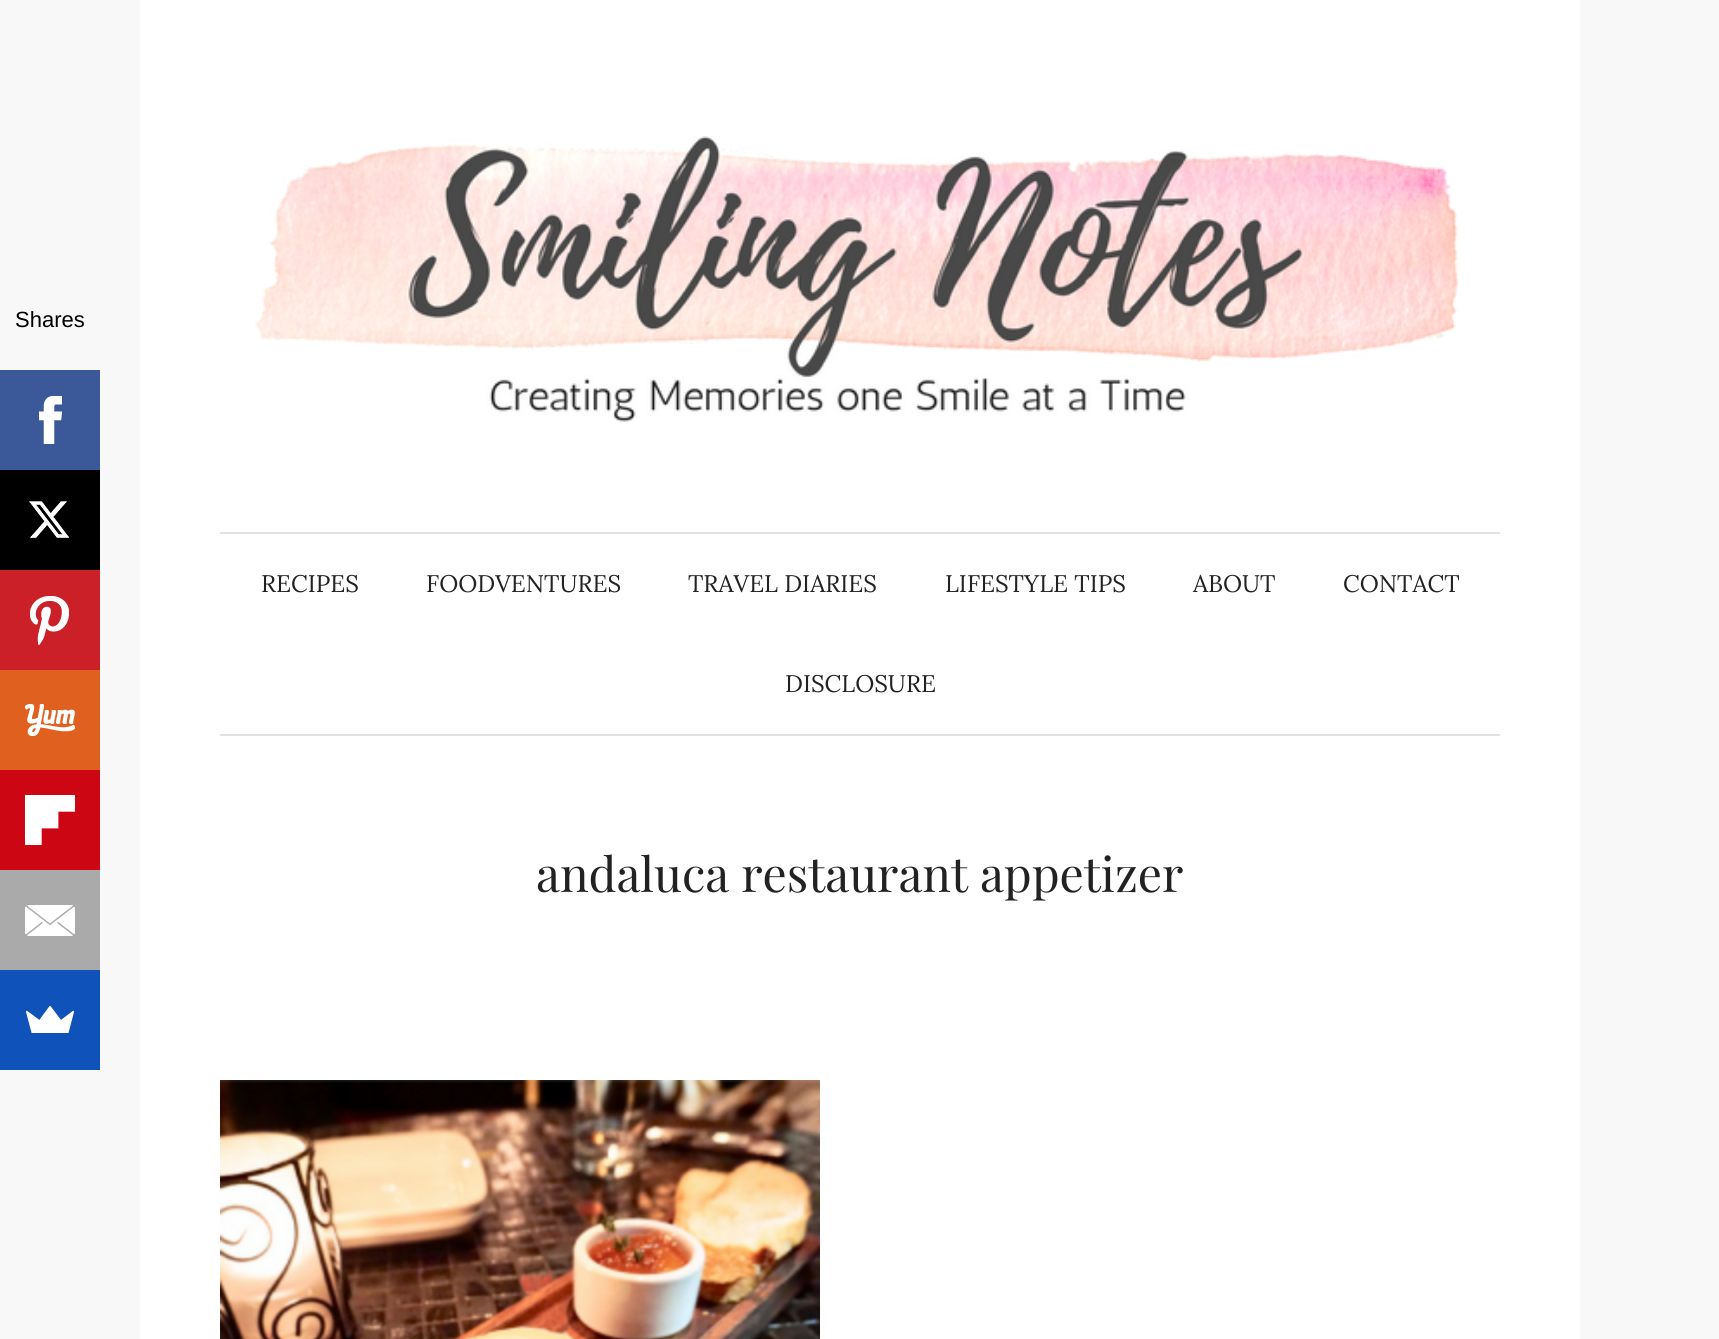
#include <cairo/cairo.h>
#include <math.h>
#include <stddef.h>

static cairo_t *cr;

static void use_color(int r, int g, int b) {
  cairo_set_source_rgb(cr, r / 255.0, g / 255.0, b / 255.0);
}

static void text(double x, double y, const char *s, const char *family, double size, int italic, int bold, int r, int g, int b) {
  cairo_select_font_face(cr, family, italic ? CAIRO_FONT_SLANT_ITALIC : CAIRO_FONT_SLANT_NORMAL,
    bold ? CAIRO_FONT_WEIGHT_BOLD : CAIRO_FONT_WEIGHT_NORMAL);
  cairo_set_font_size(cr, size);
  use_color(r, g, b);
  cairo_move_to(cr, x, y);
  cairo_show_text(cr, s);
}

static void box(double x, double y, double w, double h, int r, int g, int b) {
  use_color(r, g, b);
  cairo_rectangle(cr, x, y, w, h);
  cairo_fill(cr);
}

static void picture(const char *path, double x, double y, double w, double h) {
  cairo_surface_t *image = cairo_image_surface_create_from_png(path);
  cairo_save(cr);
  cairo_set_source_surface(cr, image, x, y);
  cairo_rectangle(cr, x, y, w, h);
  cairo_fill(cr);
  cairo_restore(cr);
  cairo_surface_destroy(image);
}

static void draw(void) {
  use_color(248, 248, 248);
  cairo_paint(cr);
  box(0, 370, 100, 100, 59, 89, 152);
  picture("img_01.png", 39, 396, 23, 48);
  box(0, 470, 100, 100, 0, 0, 0);
  picture("img_02.png", 29, 501, 40, 37);
  box(0, 570, 100, 100, 203, 32, 39);
  picture("img_03.png", 30, 596, 39, 49);
  box(0, 670, 100, 100, 224, 96, 31);
  picture("img_04.png", 25, 704, 50, 32);
  box(0, 770, 100, 100, 204, 7, 19);
  picture("img_05.png", 25, 795, 50, 50);
  box(0, 870, 100, 100, 170, 170, 170);
  picture("img_06.png", 25, 905, 50, 31);
  box(0, 970, 100, 100, 15, 82, 186);
  picture("img_07.png", 26, 1006, 48, 27);
  box(140, 0, 1440, 1339, 255, 255, 255);
  picture("img_08.png", 255, 136, 1204, 286);
  box(220, 532, 1280, 2, 226, 226, 226);
  box(220, 734, 1280, 2, 226, 226, 226);
  picture("img_09.png", 220, 1080, 600, 259);
  text(15, 327, "Shares", "Liberation Sans", 22, 0, 0, 0, 0, 0);
  text(261, 592, "RECIPES", "Lora", 24, 0, 0, 34, 34, 34);
  text(426, 592, "FOODVENTURES", "Lora", 24, 0, 0, 34, 34, 34);
  text(688, 592, "TRAVEL DIARIES", "Lora", 24, 0, 0, 34, 34, 34);
  text(945, 592, "LIFESTYLE TIPS", "Lora", 24, 0, 0, 34, 34, 34);
  text(1193, 592, "ABOUT", "Lora", 24, 0, 0, 34, 34, 34);
  text(1343, 592, "CONTACT", "Lora", 24, 0, 0, 34, 34, 34);
  text(785, 692, "DISCLOSURE", "Lora", 24, 0, 0, 34, 34, 34);
  text(536, 892, "andaluca restaurant appetizer", "Playfair Display", 48, 0, 0, 34, 34, 34);
}

int main(void) {
  cairo_surface_t *surface = cairo_image_surface_create(CAIRO_FORMAT_RGB24, 1719, 1339);
  cr = cairo_create(surface);
  cairo_font_options_t *options = cairo_font_options_create();
  cairo_font_options_set_hint_metrics(options, CAIRO_HINT_METRICS_OFF);
  cairo_font_options_set_hint_style(options, CAIRO_HINT_STYLE_NONE);
  cairo_set_font_options(cr, options);
  cairo_set_miter_limit(cr, 4);
  draw();
  cairo_surface_write_to_png(surface, "out.png");
  cairo_font_options_destroy(options);
  cairo_destroy(cr);
  cairo_surface_destroy(surface);
  return 0;
}
